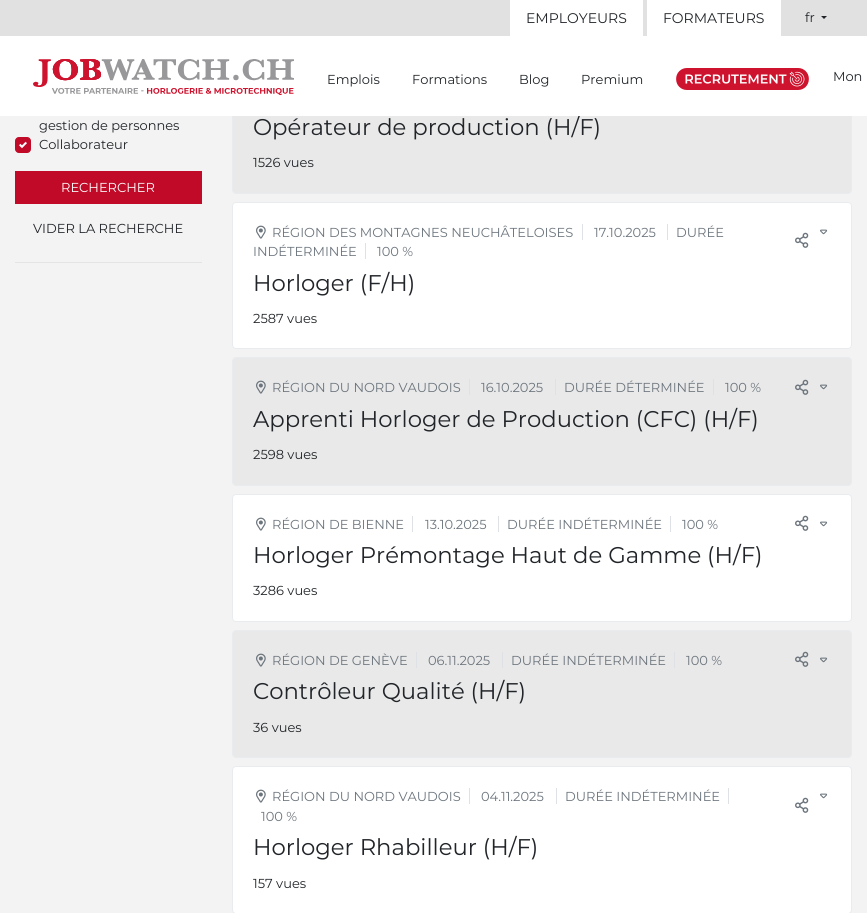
#include <cairo/cairo.h>
#include <math.h>
#include <stddef.h>

static cairo_t *cr;

static void use_color(int r, int g, int b) {
  cairo_set_source_rgb(cr, r / 255.0, g / 255.0, b / 255.0);
}

static void text(double x, double y, const char *s, const char *family, double size, int italic, int bold, int r, int g, int b) {
  cairo_select_font_face(cr, family, italic ? CAIRO_FONT_SLANT_ITALIC : CAIRO_FONT_SLANT_NORMAL,
    bold ? CAIRO_FONT_WEIGHT_BOLD : CAIRO_FONT_WEIGHT_NORMAL);
  cairo_set_font_size(cr, size);
  use_color(r, g, b);
  cairo_move_to(cr, x, y);
  cairo_show_text(cr, s);
}

static void box(double x, double y, double w, double h, int r, int g, int b) {
  use_color(r, g, b);
  cairo_rectangle(cr, x, y, w, h);
  cairo_fill(cr);
}

static void round_rect(double x, double y, double w, double h, double r) {
  cairo_new_sub_path(cr);
  cairo_arc(cr, x + w - r, y + h - r, r, 0, M_PI / 2);
  cairo_arc(cr, x + r, y + h - r, r, M_PI / 2, M_PI);
  cairo_arc(cr, x + r, y + r, r, M_PI, 1.5 * M_PI);
  cairo_arc(cr, x + w - r, y + r, r, 1.5 * M_PI, 2 * M_PI);
  cairo_close_path(cr);
}

static void picture(const char *path, double x, double y, double w, double h) {
  cairo_surface_t *image = cairo_image_surface_create_from_png(path);
  cairo_save(cr);
  cairo_set_source_surface(cr, image, x, y);
  cairo_rectangle(cr, x, y, w, h);
  cairo_fill(cr);
  cairo_restore(cr);
  cairo_surface_destroy(image);
}

static void draw(void) {
  use_color(243, 243, 243);
  cairo_paint(cr);
  box(0, 0, 867, 36, 225, 225, 225);
  box(510, 0, 133, 36, 255, 255, 255);
  box(647, 0, 134, 36, 255, 255, 255);
  use_color(33, 37, 41);
  cairo_new_path(cr);
  cairo_move_to(cr, 821, 16);
  cairo_line_to(cr, 827, 16);
  cairo_line_to(cr, 824, 19);
  cairo_close_path(cr);
  cairo_fill(cr);
  use_color(192, 10, 39);
  round_rect(15.5, 137.5, 15, 15, 3.5);
  cairo_fill_preserve(cr);
  cairo_set_line_width(cr, 1);
  cairo_stroke(cr);
  picture("img_03.png", 19, 141, 8, 8);
  box(15, 171, 187, 33, 192, 10, 39);
  box(15, 262, 187, 1, 227, 228, 228);
  use_color(233, 233, 233);
  round_rect(232.5, 65.5, 619, 128, 3.5);
  cairo_fill_preserve(cr);
  use_color(233, 236, 239);
  cairo_stroke(cr);
  use_color(255, 255, 255);
  round_rect(232.5, 202.5, 619, 146, 3.5);
  cairo_fill_preserve(cr);
  use_color(233, 236, 239);
  cairo_stroke(cr);
  box(582, 224, 1, 16, 222, 226, 230);
  picture("img_04.png", 256, 225, 10, 14);
  box(667, 224, 1, 16, 222, 226, 230);
  box(365, 243, 1, 16, 222, 226, 230);
  picture("img_05.png", 795, 232, 14, 16);
  picture("img_06.png", 820, 229, 8, 6);
  use_color(233, 233, 233);
  round_rect(232.5, 357.5, 619, 128, 3.5);
  cairo_fill_preserve(cr);
  use_color(233, 236, 239);
  cairo_stroke(cr);
  box(469, 379, 1, 16, 222, 226, 230);
  picture("img_07.png", 256, 380, 10, 14);
  box(555, 379, 1, 16, 222, 226, 230);
  box(713, 379, 1, 16, 222, 226, 230);
  picture("img_08.png", 795, 379, 14, 16);
  picture("img_09.png", 820, 384, 8, 6);
  use_color(255, 255, 255);
  round_rect(232.5, 494.5, 619, 127, 3.5);
  cairo_fill_preserve(cr);
  use_color(233, 236, 239);
  cairo_stroke(cr);
  box(412, 516, 1, 16, 222, 226, 230);
  picture("img_04.png", 256, 517, 10, 14);
  box(498, 516, 1, 16, 222, 226, 230);
  box(670, 516, 1, 16, 222, 226, 230);
  picture("img_05.png", 795, 515, 14, 16);
  picture("img_06.png", 820, 521, 8, 6);
  use_color(233, 233, 233);
  round_rect(232.5, 630.5, 619, 127, 3.5);
  cairo_fill_preserve(cr);
  use_color(233, 236, 239);
  cairo_stroke(cr);
  box(416, 652, 1, 16, 222, 226, 230);
  picture("img_07.png", 256, 653, 10, 14);
  box(502, 652, 1, 16, 222, 226, 230);
  box(674, 652, 1, 16, 222, 226, 230);
  picture("img_08.png", 795, 651, 14, 16);
  picture("img_09.png", 820, 657, 8, 6);
  use_color(255, 255, 255);
  round_rect(232.5, 766.5, 619, 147, 3.5);
  cairo_fill_preserve(cr);
  use_color(233, 236, 239);
  cairo_stroke(cr);
  box(469, 788, 1, 16, 222, 226, 230);
  picture("img_04.png", 256, 789, 10, 14);
  box(556, 788, 1, 16, 222, 226, 230);
  box(728, 788, 1, 16, 222, 226, 230);
  picture("img_06.png", 820, 793, 8, 6);
  picture("img_05.png", 795, 797, 14, 16);
  text(526, 23, "EMPLOYEURS", "Montserrat", 14, 0, 0, 33, 37, 41);
  text(663, 23, "FORMATEURS", "Montserrat", 14, 0, 0, 33, 37, 41);
  text(805, 22, "fr", "Montserrat", 13, 0, 0, 33, 37, 41);
  text(39, 130, "gestion de personnes", "Montserrat", 13, 0, 0, 33, 37, 41);
  text(39, 149, "Collaborateur", "Montserrat", 13, 0, 0, 33, 37, 41);
  text(61, 192, "RECHERCHER", "Montserrat", 13, 0, 0, 255, 255, 255);
  text(33, 233, "VIDER LA RECHERCHE", "Montserrat", 13, 0, 0, 33, 37, 41);
  text(253, 135, "Opérateur de production (H/F)", "Montserrat", 22.75, 0, 0, 33, 37, 41);
  box(0, 36, 867, 80, 255, 255, 255);
  text(833, 81, "Mon", "Montserrat", 13, 0, 0, 33, 37, 41);
  picture("img_02.png", 676, 68, 133, 22);
  text(581, 84, "Premium", "Montserrat", 13, 0, 0, 33, 37, 41);
  text(519, 84, "Blog", "Montserrat", 13, 0, 0, 33, 37, 41);
  text(412, 84, "Formations", "Montserrat", 13, 0, 0, 33, 37, 41);
  text(327, 84, "Emplois", "Montserrat", 13, 0, 0, 33, 37, 41);
  picture("img_01.png", 33, 59, 261, 36);
  text(253, 167, "1526 vues", "Montserrat", 13, 0, 0, 33, 37, 41);
  text(272, 237, "RÉGION DES MONTAGNES NEUCHÂTELOISES", "Montserrat", 13, 0, 0, 108, 117, 125);
  text(594, 237, "17.10.2025", "Montserrat", 13, 0, 0, 108, 117, 125);
  text(676, 237, "DURÉE", "Montserrat", 13, 0, 0, 108, 117, 125);
  text(253, 256, "INDÉTERMINÉE", "Montserrat", 13, 0, 0, 108, 117, 125);
  text(377, 256, "100 %", "Montserrat", 13, 0, 0, 108, 117, 125);
  text(253, 291, "Horloger (F/H)", "Montserrat", 22.75, 0, 0, 33, 37, 41);
  text(253, 323, "2587 vues", "Montserrat", 13, 0, 0, 33, 37, 41);
  text(272, 392, "RÉGION DU NORD VAUDOIS", "Montserrat", 13, 0, 0, 108, 117, 125);
  text(481, 392, "16.10.2025", "Montserrat", 13, 0, 0, 108, 117, 125);
  text(564, 392, "DURÉE DÉTERMINÉE", "Montserrat", 13, 0, 0, 108, 117, 125);
  text(725, 392, "100 %", "Montserrat", 13, 0, 0, 108, 117, 125);
  text(253, 427, "Apprenti Horloger de Production (CFC) (H/F)", "Montserrat", 22.75, 0, 0, 33, 37, 41);
  text(253, 459, "2598 vues", "Montserrat", 13, 0, 0, 33, 37, 41);
  text(272, 529, "RÉGION DE BIENNE", "Montserrat", 13, 0, 0, 108, 117, 125);
  text(425, 529, "13.10.2025", "Montserrat", 13, 0, 0, 108, 117, 125);
  text(507, 529, "DURÉE INDÉTERMINÉE", "Montserrat", 13, 0, 0, 108, 117, 125);
  text(682, 529, "100 %", "Montserrat", 13, 0, 0, 108, 117, 125);
  text(253, 563, "Horloger Prémontage Haut de Gamme (H/F)", "Montserrat", 22.75, 0, 0, 33, 37, 41);
  text(253, 595, "3286 vues", "Montserrat", 13, 0, 0, 33, 37, 41);
  text(272, 665, "RÉGION DE GENÈVE", "Montserrat", 13, 0, 0, 108, 117, 125);
  text(428, 665, "06.11.2025", "Montserrat", 13, 0, 0, 108, 117, 125);
  text(511, 665, "DURÉE INDÉTERMINÉE", "Montserrat", 13, 0, 0, 108, 117, 125);
  text(686, 665, "100 %", "Montserrat", 13, 0, 0, 108, 117, 125);
  text(253, 699, "Contrôleur Qualité (H/F)", "Montserrat", 22.75, 0, 0, 33, 37, 41);
  text(253, 732, "36 vues", "Montserrat", 13, 0, 0, 33, 37, 41);
  text(272, 801, "RÉGION DU NORD VAUDOIS", "Montserrat", 13, 0, 0, 108, 117, 125);
  text(481, 801, "04.11.2025", "Montserrat", 13, 0, 0, 108, 117, 125);
  text(565, 801, "DURÉE INDÉTERMINÉE", "Montserrat", 13, 0, 0, 108, 117, 125);
  text(261, 821, "100 %", "Montserrat", 13, 0, 0, 108, 117, 125);
  text(253, 855, "Horloger Rhabilleur (H/F)", "Montserrat", 22.75, 0, 0, 33, 37, 41);
  text(253, 888, "157 vues", "Montserrat", 13, 0, 0, 33, 37, 41);
}

int main(void) {
  cairo_surface_t *surface = cairo_image_surface_create(CAIRO_FORMAT_RGB24, 867, 913);
  cr = cairo_create(surface);
  cairo_font_options_t *options = cairo_font_options_create();
  cairo_font_options_set_hint_metrics(options, CAIRO_HINT_METRICS_OFF);
  cairo_font_options_set_hint_style(options, CAIRO_HINT_STYLE_NONE);
  cairo_set_font_options(cr, options);
  cairo_set_miter_limit(cr, 4);
  draw();
  cairo_surface_write_to_png(surface, "out.png");
  cairo_font_options_destroy(options);
  cairo_destroy(cr);
  cairo_surface_destroy(surface);
  return 0;
}
